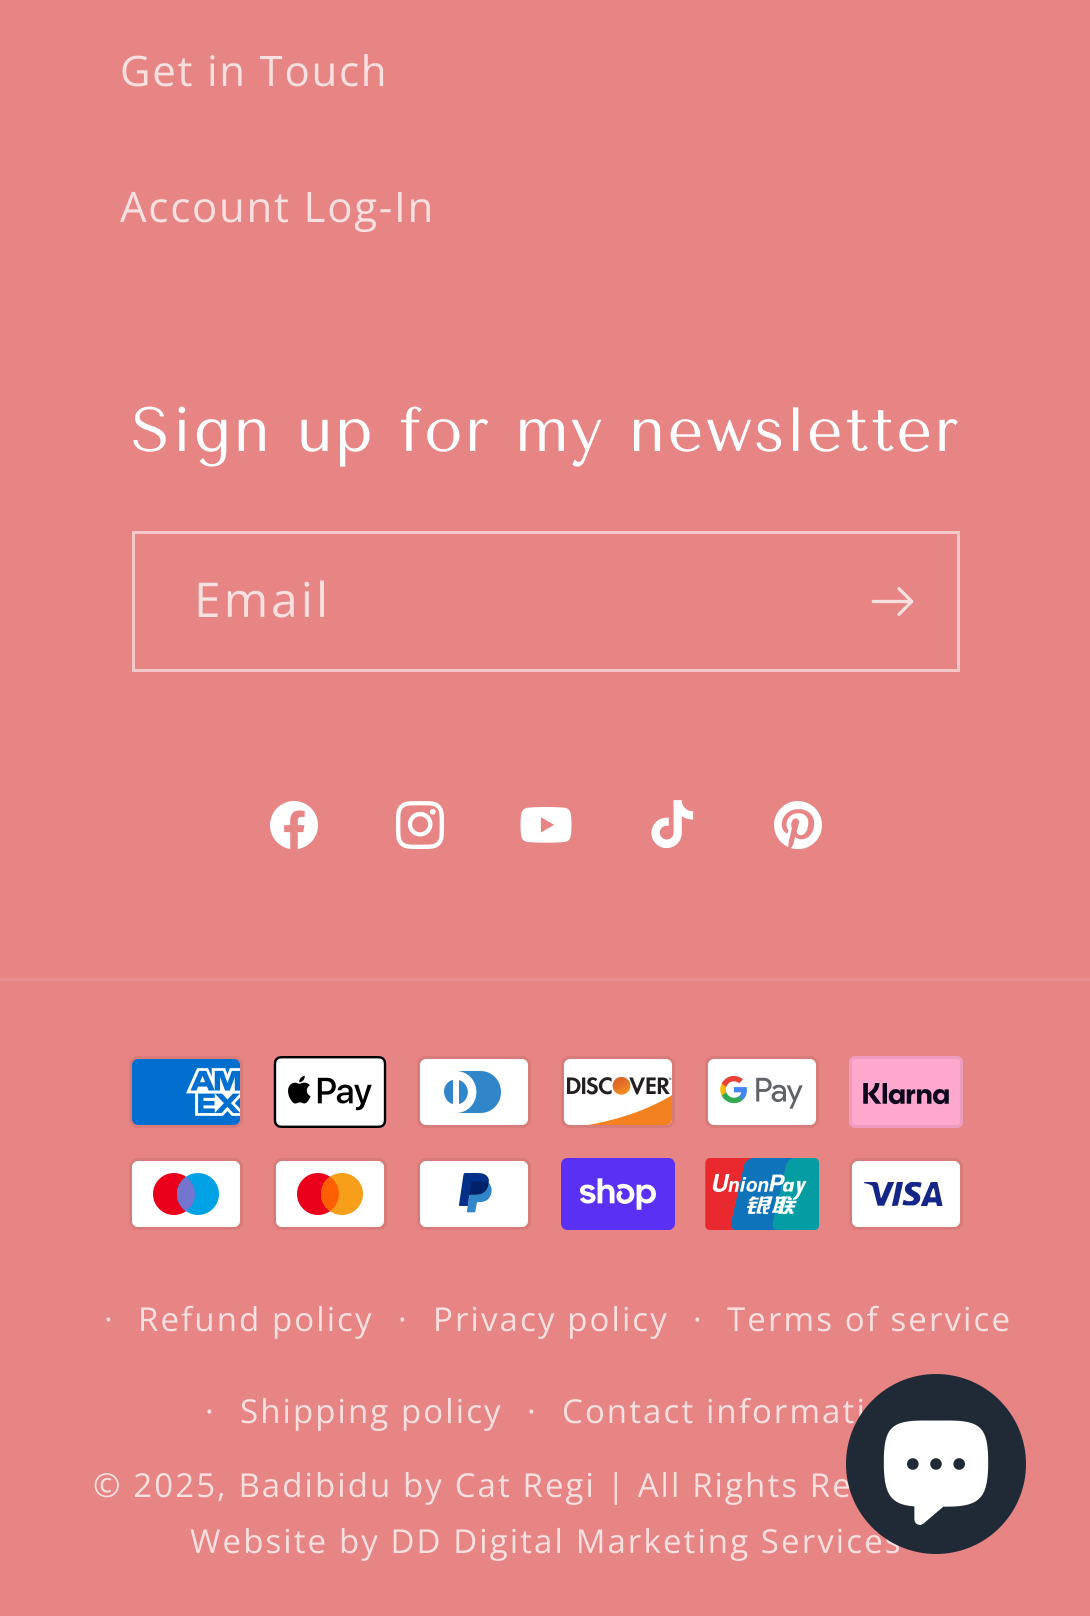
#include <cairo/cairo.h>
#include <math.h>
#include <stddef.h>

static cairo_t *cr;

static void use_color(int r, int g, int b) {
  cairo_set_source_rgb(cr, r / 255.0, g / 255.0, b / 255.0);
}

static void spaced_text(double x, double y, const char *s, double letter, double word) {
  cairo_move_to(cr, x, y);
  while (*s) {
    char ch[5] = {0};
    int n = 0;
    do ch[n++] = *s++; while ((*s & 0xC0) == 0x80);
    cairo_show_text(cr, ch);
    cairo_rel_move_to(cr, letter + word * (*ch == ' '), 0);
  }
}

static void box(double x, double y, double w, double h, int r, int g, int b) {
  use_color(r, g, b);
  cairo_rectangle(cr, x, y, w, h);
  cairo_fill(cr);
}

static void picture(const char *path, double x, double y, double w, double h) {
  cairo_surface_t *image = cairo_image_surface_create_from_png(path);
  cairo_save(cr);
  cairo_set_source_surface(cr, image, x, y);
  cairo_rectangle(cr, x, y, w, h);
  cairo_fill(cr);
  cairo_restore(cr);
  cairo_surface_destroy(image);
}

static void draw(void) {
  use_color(231, 132, 132);
  cairo_paint(cr);
  cairo_rectangle(cr, 133.5, 532.5, 825, 138);
  use_color(244, 200, 200);
  cairo_set_line_width(cr, 3);
  cairo_stroke(cr);
  picture("img_01.png", 871, 587, 43, 29);
  picture("img_02.png", 270, 801, 48, 48);
  picture("img_03.png", 396, 801, 48, 48);
  picture("img_04.png", 520, 807, 52, 36);
  picture("img_05.png", 651, 800, 43, 49);
  picture("img_06.png", 774, 801, 48, 49);
  box(0, 978, 1090, 3, 233, 142, 142);
  picture("img_07.png", 129, 1056, 114, 72);
  picture("img_08.png", 273, 1056, 114, 72);
  picture("img_09.png", 417, 1056, 114, 72);
  picture("img_10.png", 561, 1056, 114, 72);
  picture("img_11.png", 705, 1056, 114, 72);
  picture("img_12.png", 849, 1056, 114, 72);
  picture("img_13.png", 129, 1158, 114, 72);
  picture("img_14.png", 273, 1158, 114, 72);
  picture("img_15.png", 417, 1158, 114, 72);
  picture("img_16.png", 561, 1158, 114, 72);
  picture("img_17.png", 705, 1158, 114, 72);
  picture("img_18.png", 849, 1158, 114, 72);
  cairo_select_font_face(cr, "Open Sans", CAIRO_FONT_SLANT_NORMAL, CAIRO_FONT_WEIGHT_NORMAL);
  cairo_set_font_size(cr, 42);
  use_color(249, 224, 224);
  spaced_text(120, 86, "Get in Touch", 1.75, 0);
  spaced_text(120, 222, "Account Log-In", 1.75, 0);
  cairo_select_font_face(cr, "Tenor Sans", CAIRO_FONT_SLANT_NORMAL, CAIRO_FONT_WEIGHT_NORMAL);
  cairo_set_font_size(cr, 62.4);
  use_color(255, 255, 255);
  spaced_text(131, 451, "Sign up for my newsletter", 2.3, 0);
  cairo_select_font_face(cr, "Open Sans", CAIRO_FONT_SLANT_NORMAL, CAIRO_FONT_WEIGHT_NORMAL);
  cairo_set_font_size(cr, 48);
  use_color(249, 224, 224);
  spaced_text(194, 617, "Email", 3, 0);
  cairo_set_font_size(cr, 33);
  spaced_text(104, 1331, "·", 2.1, 0);
  spaced_text(138, 1331, "Refund policy", 2.1, 0);
  spaced_text(398, 1331, "·", 2.1, 0);
  spaced_text(433, 1331, "Privacy policy", 2.1, 0);
  spaced_text(693, 1331, "·", 2.1, 0);
  spaced_text(727, 1331, "Terms of service", 2.1, 0);
  spaced_text(205, 1423, "·", 2.1, 0);
  spaced_text(240, 1423, "Shipping policy", 2.1, 0);
  spaced_text(527, 1423, "·", 2.1, 0);
  spaced_text(562, 1423, "Contact informati", 2.1, 0);
  spaced_text(93, 1497, "© 2025, Badibidu by Cat Regi | All Rights Re", 2.1, 0);
  spaced_text(190, 1553, "Website by DD Digital Marketing Services", 2.1, 0);
  use_color(32, 42, 54);
  cairo_new_path(cr);
  cairo_arc(cr, 936, 1464, 90, 0, 2 * M_PI);
  cairo_fill(cr);
  picture("img_19.png", 883, 1420, 106, 105);
}

int main(void) {
  cairo_surface_t *surface = cairo_image_surface_create(CAIRO_FORMAT_RGB24, 1090, 1616);
  cr = cairo_create(surface);
  cairo_font_options_t *options = cairo_font_options_create();
  cairo_font_options_set_hint_metrics(options, CAIRO_HINT_METRICS_OFF);
  cairo_font_options_set_hint_style(options, CAIRO_HINT_STYLE_NONE);
  cairo_set_font_options(cr, options);
  cairo_set_miter_limit(cr, 4);
  draw();
  cairo_surface_write_to_png(surface, "out.png");
  cairo_font_options_destroy(options);
  cairo_destroy(cr);
  cairo_surface_destroy(surface);
  return 0;
}
